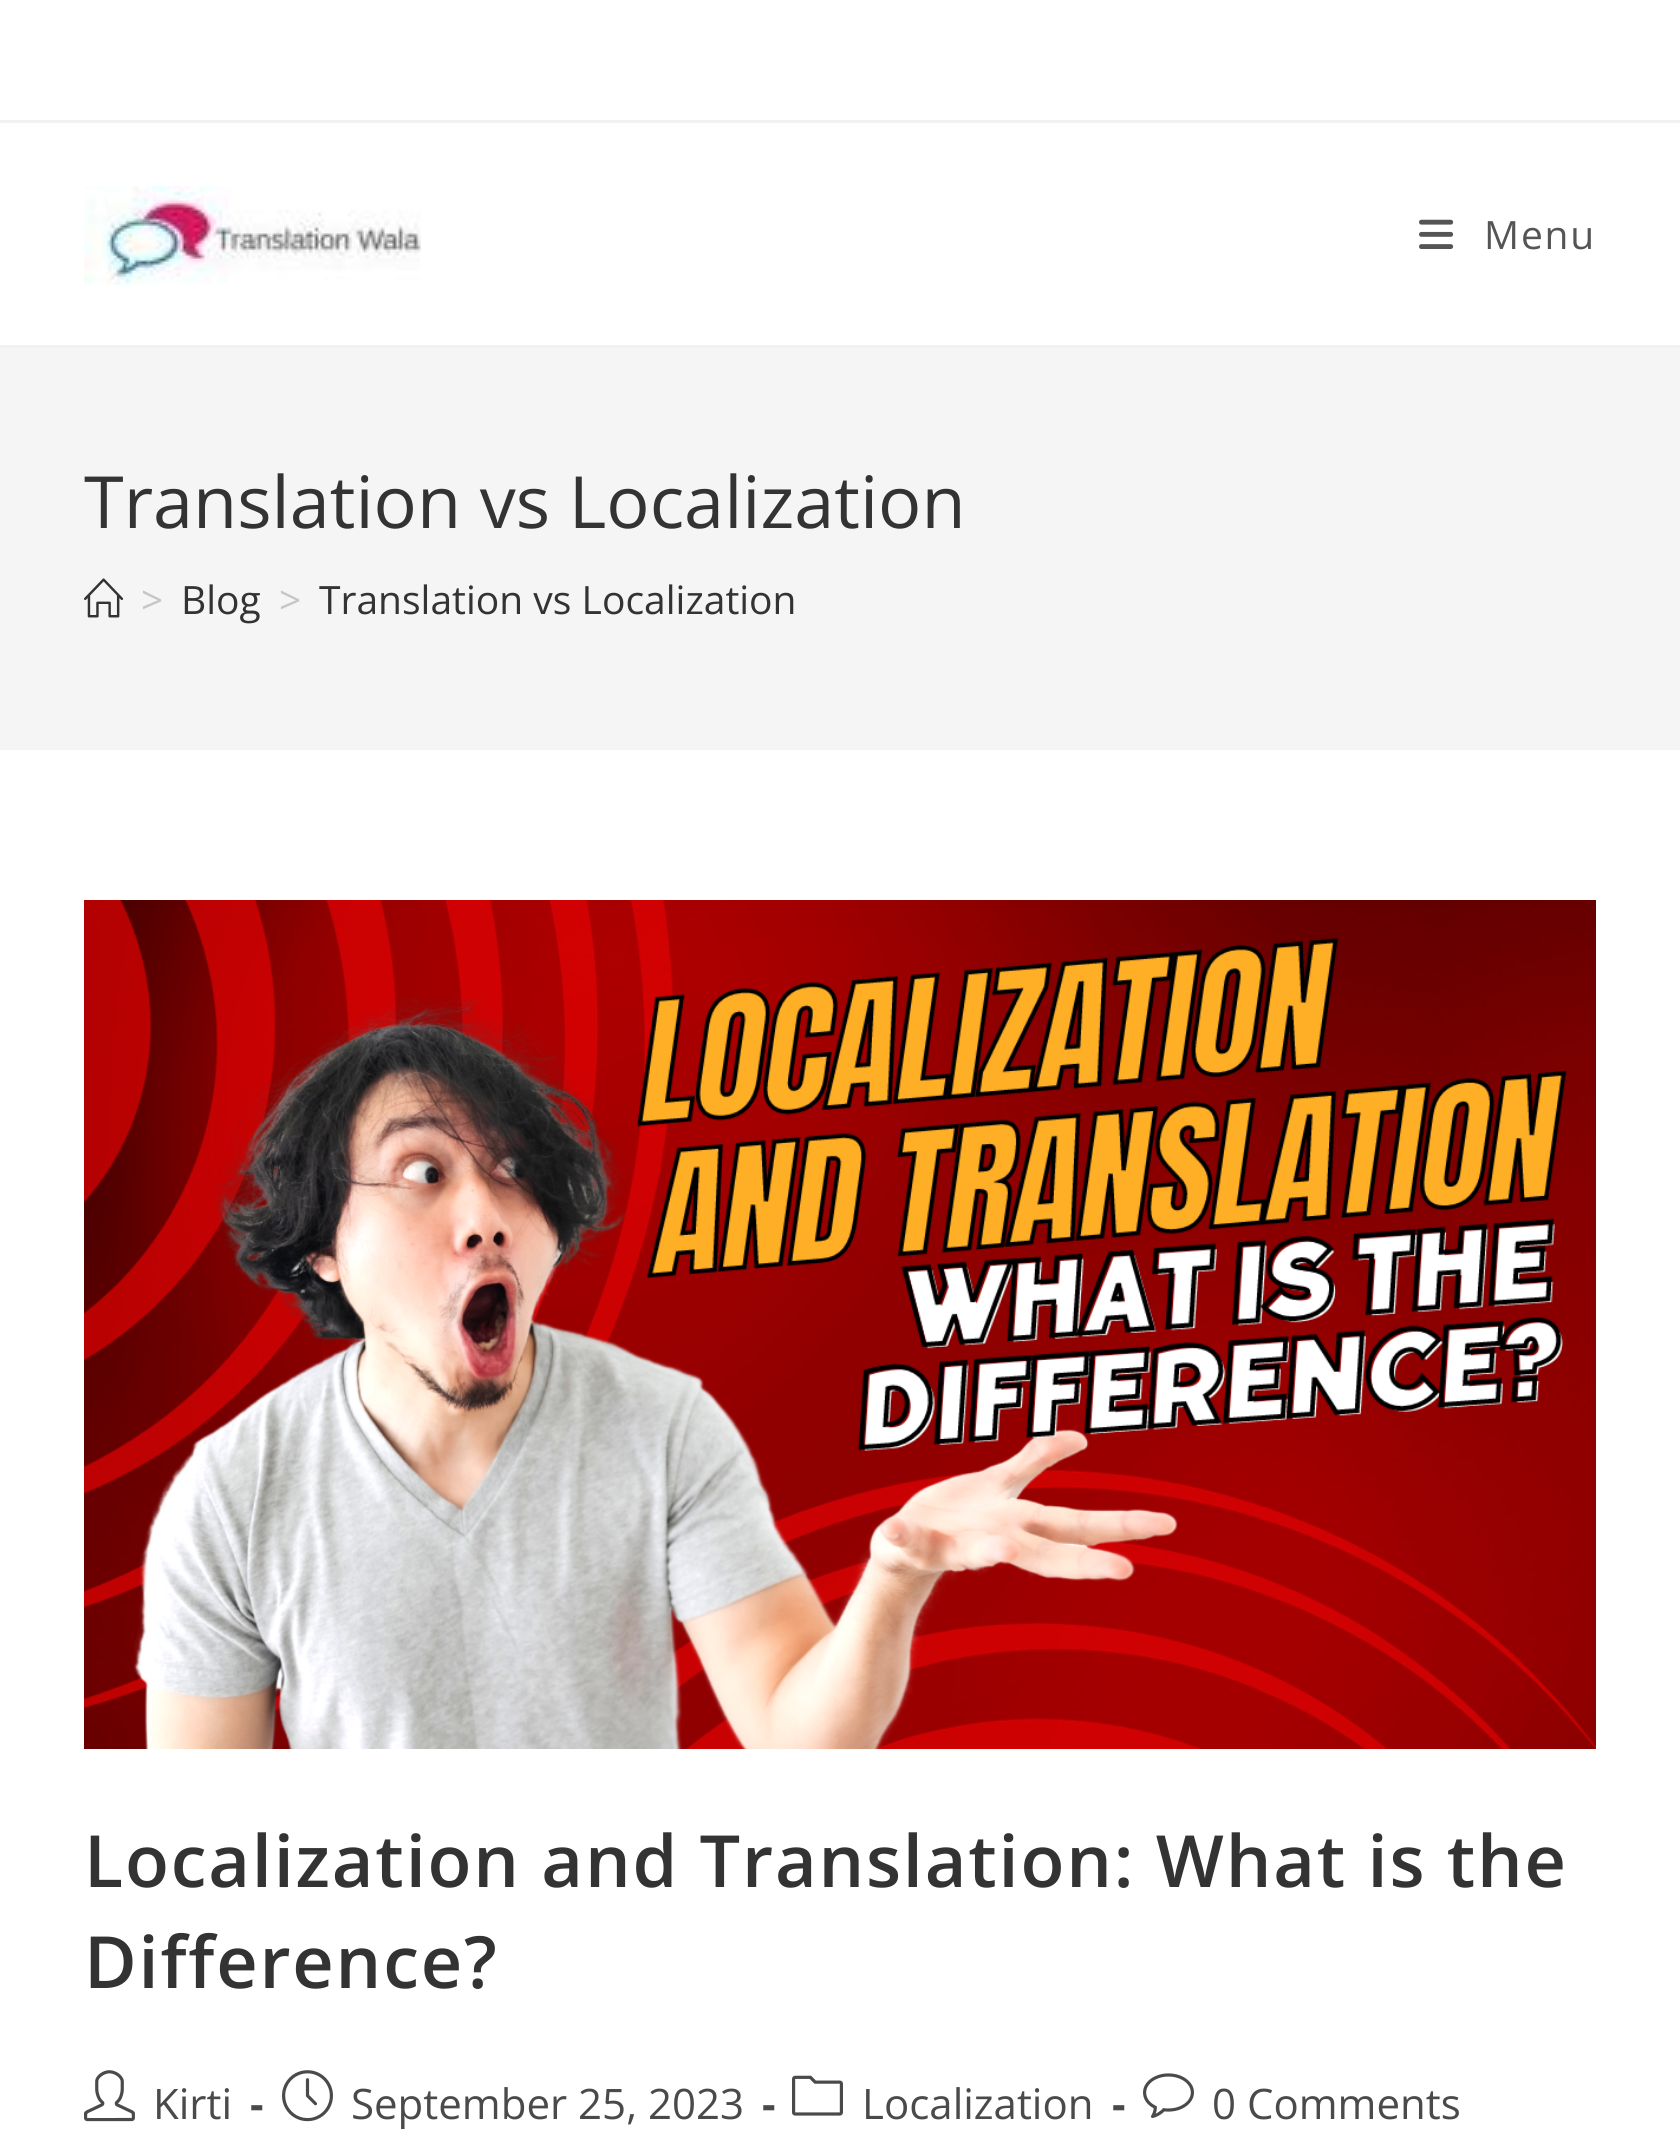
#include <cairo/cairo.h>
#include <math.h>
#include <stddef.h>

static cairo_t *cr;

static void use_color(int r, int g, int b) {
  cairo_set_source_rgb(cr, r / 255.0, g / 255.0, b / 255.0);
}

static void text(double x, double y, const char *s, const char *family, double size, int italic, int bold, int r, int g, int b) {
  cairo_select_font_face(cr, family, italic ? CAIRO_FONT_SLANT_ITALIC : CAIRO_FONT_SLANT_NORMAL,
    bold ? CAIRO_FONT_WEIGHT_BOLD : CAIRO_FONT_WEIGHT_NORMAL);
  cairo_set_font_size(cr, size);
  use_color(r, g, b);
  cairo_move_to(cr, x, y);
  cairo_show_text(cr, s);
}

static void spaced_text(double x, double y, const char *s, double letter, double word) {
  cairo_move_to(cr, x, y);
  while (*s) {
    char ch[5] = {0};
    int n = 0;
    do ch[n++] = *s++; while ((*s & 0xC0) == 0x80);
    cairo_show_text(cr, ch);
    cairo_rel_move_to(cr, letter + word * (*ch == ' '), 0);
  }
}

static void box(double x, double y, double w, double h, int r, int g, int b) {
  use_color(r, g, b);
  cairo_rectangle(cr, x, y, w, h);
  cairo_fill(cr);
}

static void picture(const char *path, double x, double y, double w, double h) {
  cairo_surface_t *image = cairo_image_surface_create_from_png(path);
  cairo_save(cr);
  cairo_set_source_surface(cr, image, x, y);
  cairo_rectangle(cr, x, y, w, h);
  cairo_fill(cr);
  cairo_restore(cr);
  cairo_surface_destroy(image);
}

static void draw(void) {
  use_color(255, 255, 255);
  cairo_paint(cr);
  box(0, 120, 1680, 3, 241, 241, 241);
  box(0, 345, 1680, 3, 241, 241, 241);
  picture("img_01.png", 84, 186, 337, 99);
  picture("img_02.png", 1419, 219, 35, 30);
  box(0, 348, 1680, 402, 245, 245, 245);
  picture("img_03.png", 84, 578, 40, 40);
  picture("img_04.png", 84, 900, 1512, 849);
  picture("img_05.png", 84, 2070, 51, 52);
  picture("img_06.png", 282, 2070, 51, 52);
  picture("img_07.png", 792, 2075, 51, 41);
  picture("img_08.png", 1143, 2073, 51, 45);
  cairo_select_font_face(cr, "Open Sans", CAIRO_FONT_SLANT_NORMAL, CAIRO_FONT_WEIGHT_NORMAL);
  cairo_set_font_size(cr, 39);
  use_color(85, 85, 85);
  spaced_text(1484, 249, "Menu", 1.8, 0);
  text(84, 528, "Translation vs Localization", "Open Sans", 72, 0, 0, 51, 51, 51);
  text(141, 614, ">", "Open Sans", 39, 0, 0, 198, 198, 198);
  text(181, 614, "Blog", "Open Sans", 39, 0, 0, 51, 51, 51);
  text(279, 614, ">", "Open Sans", 39, 0, 0, 198, 198, 198);
  text(319, 614, "Translation vs Localization", "Open Sans", 39, 0, 0, 51, 51, 51);
  cairo_select_font_face(cr, "Open Sans SemiBold", CAIRO_FONT_SLANT_NORMAL, CAIRO_FONT_WEIGHT_NORMAL);
  cairo_set_font_size(cr, 72);
  spaced_text(84, 1887, "Localization and Translation: What is the", 1.8, 0);
  spaced_text(84, 1988, "Difference?", 1.8, 0);
  text(153, 2119, "Kirti", "Open Sans", 42, 0, 0, 74, 74, 74);
  text(250, 2119, "-", "Open Sans", 42, 0, 1, 74, 74, 74);
  text(351, 2119, "September 25, 2023", "Open Sans", 42, 0, 0, 74, 74, 74);
  text(762, 2119, "-", "Open Sans", 42, 0, 1, 74, 74, 74);
  text(862, 2119, "Localization", "Open Sans", 42, 0, 0, 74, 74, 74);
  text(1112, 2119, "-", "Open Sans", 42, 0, 1, 74, 74, 74);
  text(1212, 2119, "0 Comments", "Open Sans", 42, 0, 0, 74, 74, 74);
}

int main(void) {
  cairo_surface_t *surface = cairo_image_surface_create(CAIRO_FORMAT_RGB24, 1680, 2133);
  cr = cairo_create(surface);
  cairo_font_options_t *options = cairo_font_options_create();
  cairo_font_options_set_hint_metrics(options, CAIRO_HINT_METRICS_OFF);
  cairo_font_options_set_hint_style(options, CAIRO_HINT_STYLE_NONE);
  cairo_set_font_options(cr, options);
  cairo_set_miter_limit(cr, 4);
  draw();
  cairo_surface_write_to_png(surface, "out.png");
  cairo_font_options_destroy(options);
  cairo_destroy(cr);
  cairo_surface_destroy(surface);
  return 0;
}
